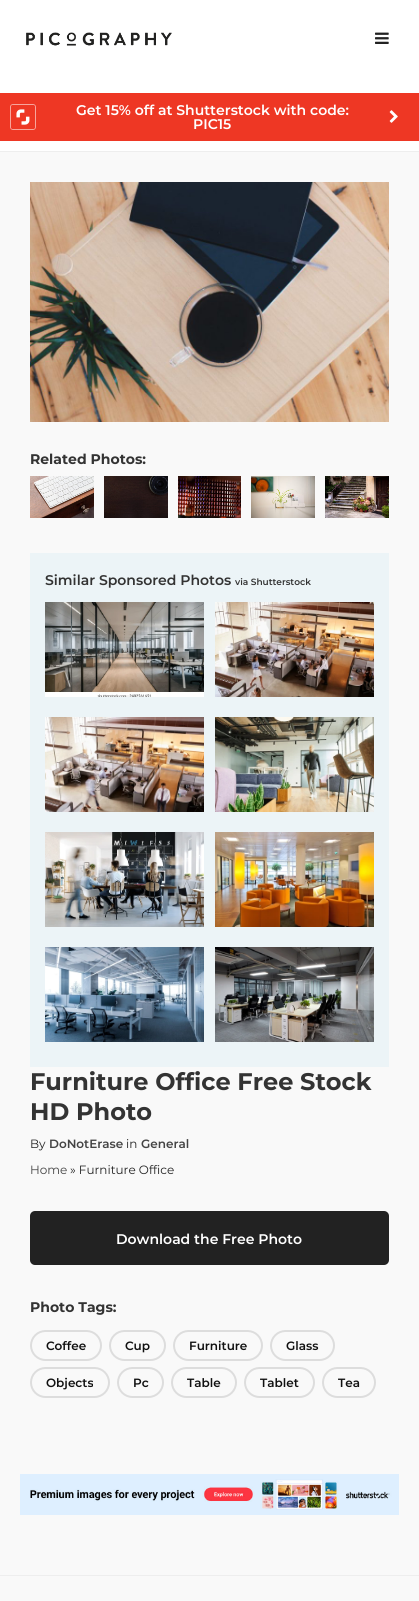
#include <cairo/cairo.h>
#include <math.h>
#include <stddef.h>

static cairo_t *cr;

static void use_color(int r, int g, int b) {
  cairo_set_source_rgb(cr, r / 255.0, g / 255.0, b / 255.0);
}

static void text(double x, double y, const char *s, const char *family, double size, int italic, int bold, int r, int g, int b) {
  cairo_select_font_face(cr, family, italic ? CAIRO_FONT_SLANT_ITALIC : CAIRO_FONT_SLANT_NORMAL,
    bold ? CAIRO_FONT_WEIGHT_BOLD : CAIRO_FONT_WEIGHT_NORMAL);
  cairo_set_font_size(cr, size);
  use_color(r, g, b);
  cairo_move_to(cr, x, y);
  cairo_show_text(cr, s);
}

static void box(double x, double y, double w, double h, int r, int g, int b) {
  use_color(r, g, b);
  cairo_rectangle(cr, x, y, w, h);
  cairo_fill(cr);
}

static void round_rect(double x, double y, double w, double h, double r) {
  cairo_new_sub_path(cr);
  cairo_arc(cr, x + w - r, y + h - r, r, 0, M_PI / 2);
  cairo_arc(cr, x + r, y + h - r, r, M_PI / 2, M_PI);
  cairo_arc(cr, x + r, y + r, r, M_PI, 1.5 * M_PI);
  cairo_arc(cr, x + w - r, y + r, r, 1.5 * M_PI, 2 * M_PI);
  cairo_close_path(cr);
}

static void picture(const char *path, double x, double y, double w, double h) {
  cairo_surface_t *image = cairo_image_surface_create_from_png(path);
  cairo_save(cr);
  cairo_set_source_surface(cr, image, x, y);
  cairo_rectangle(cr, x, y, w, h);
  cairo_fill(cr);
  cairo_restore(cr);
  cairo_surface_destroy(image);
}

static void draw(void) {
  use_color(249, 249, 249);
  cairo_paint(cr);
  box(0, 0, 419, 151, 255, 255, 255);
  box(0, 151, 419, 1, 238, 238, 238);
  picture("img_01.png", 26, 32, 146, 14);
  picture("img_02.png", 375, 32, 14, 12);
  box(0, 93, 419, 48, 238, 55, 36);
  round_rect(10.5, 104.5, 25, 25, 2.5);
  use_color(247, 165, 156);
  cairo_set_line_width(cr, 1);
  cairo_stroke(cr);
  picture("img_03.png", 11, 105, 24, 24);
  picture("img_04.png", 389, 110, 9, 13);
  picture("img_05.png", 30, 182, 359, 240);
  picture("img_06.png", 30, 476, 64, 42);
  picture("img_07.png", 104, 476, 64, 42);
  picture("img_08.png", 178, 476, 63, 42);
  picture("img_09.png", 251, 476, 64, 42);
  picture("img_10.png", 325, 476, 64, 42);
  box(30, 553, 359, 514, 236, 244, 247);
  picture("img_11.png", 45, 602, 159, 95);
  picture("img_12.png", 215, 602, 159, 95);
  picture("img_13.png", 45, 717, 159, 95);
  picture("img_14.png", 215, 717, 159, 95);
  picture("img_15.png", 45, 832, 159, 95);
  picture("img_16.png", 215, 832, 159, 95);
  picture("img_17.png", 45, 947, 159, 95);
  picture("img_18.png", 215, 947, 159, 95);
  use_color(34, 34, 34);
  round_rect(30, 1211, 359, 54, 5);
  cairo_fill(cr);
  round_rect(31, 1331, 70, 29, 14.5);
  use_color(221, 221, 221);
  cairo_set_line_width(cr, 2);
  cairo_stroke(cr);
  round_rect(110, 1331, 55, 29, 14.5);
  cairo_stroke(cr);
  round_rect(174, 1331, 88, 29, 14.5);
  cairo_stroke(cr);
  round_rect(271, 1331, 63, 29, 14.5);
  cairo_stroke(cr);
  round_rect(31, 1368, 78, 29, 14.5);
  cairo_stroke(cr);
  round_rect(118, 1368, 45, 29, 14.5);
  cairo_stroke(cr);
  round_rect(172, 1368, 64, 29, 14.5);
  cairo_stroke(cr);
  round_rect(245, 1368, 69, 29, 14.5);
  cairo_stroke(cr);
  round_rect(323, 1368, 52, 29, 14.5);
  cairo_stroke(cr);
  picture("img_19.png", 20, 1474, 379, 41);
  box(0, 1575, 419, 1, 238, 238, 238);
  text(76, 115, "Get 15% off at Shutterstock with code:", "Montserrat SemiBold", 14, 0, 0, 255, 255, 255);
  text(193, 129, "PIC15", "Montserrat SemiBold", 14, 0, 0, 255, 255, 255);
  text(30, 464, "Related Photos:", "Montserrat", 14, 0, 1, 51, 51, 51);
  text(45, 585, "Similar Sponsored Photos", "Montserrat SemiBold", 14, 0, 0, 51, 51, 51);
  text(235, 585, "via Shutterstock", "Montserrat SemiBold", 9, 0, 0, 51, 51, 51);
  text(30, 1090, "Furniture Office Free Stock", "Montserrat", 24, 0, 1, 51, 51, 51);
  text(30, 1120, "HD Photo", "Montserrat", 24, 0, 1, 51, 51, 51);
  text(30, 1148, "By", "Montserrat", 12, 0, 0, 34, 34, 34);
  text(49, 1148, "DoNotErase", "Montserrat SemiBold", 12, 0, 0, 68, 68, 68);
  text(126, 1148, "in", "Montserrat", 12, 0, 0, 34, 34, 34);
  text(141, 1148, "General", "Montserrat SemiBold", 12, 0, 0, 68, 68, 68);
  text(30, 1174, "Home", "Montserrat", 12, 0, 0, 68, 68, 68);
  text(70, 1174, "» Furniture Office", "Montserrat", 12, 0, 0, 34, 34, 34);
  text(116, 1244, "Download the Free Photo", "Montserrat SemiBold", 14, 0, 0, 255, 255, 255);
  text(30, 1312, "Photo Tags:", "Montserrat", 14, 0, 1, 51, 51, 51);
  text(46, 1350, "Coffee", "Montserrat SemiBold", 12, 0, 0, 17, 17, 17);
  text(125, 1350, "Cup", "Montserrat SemiBold", 12, 0, 0, 17, 17, 17);
  text(189, 1350, "Furniture", "Montserrat SemiBold", 12, 0, 0, 17, 17, 17);
  text(286, 1350, "Glass", "Montserrat SemiBold", 12, 0, 0, 17, 17, 17);
  text(46, 1387, "Objects", "Montserrat SemiBold", 12, 0, 0, 17, 17, 17);
  text(133, 1387, "Pc", "Montserrat SemiBold", 12, 0, 0, 17, 17, 17);
  text(187, 1387, "Table", "Montserrat SemiBold", 12, 0, 0, 17, 17, 17);
  text(260, 1387, "Tablet", "Montserrat SemiBold", 12, 0, 0, 17, 17, 17);
  text(338, 1387, "Tea", "Montserrat SemiBold", 12, 0, 0, 17, 17, 17);
}

int main(void) {
  cairo_surface_t *surface = cairo_image_surface_create(CAIRO_FORMAT_RGB24, 419, 1601);
  cr = cairo_create(surface);
  cairo_font_options_t *options = cairo_font_options_create();
  cairo_font_options_set_hint_metrics(options, CAIRO_HINT_METRICS_OFF);
  cairo_font_options_set_hint_style(options, CAIRO_HINT_STYLE_NONE);
  cairo_set_font_options(cr, options);
  cairo_set_miter_limit(cr, 4);
  draw();
  cairo_surface_write_to_png(surface, "out.png");
  cairo_font_options_destroy(options);
  cairo_destroy(cr);
  cairo_surface_destroy(surface);
  return 0;
}
